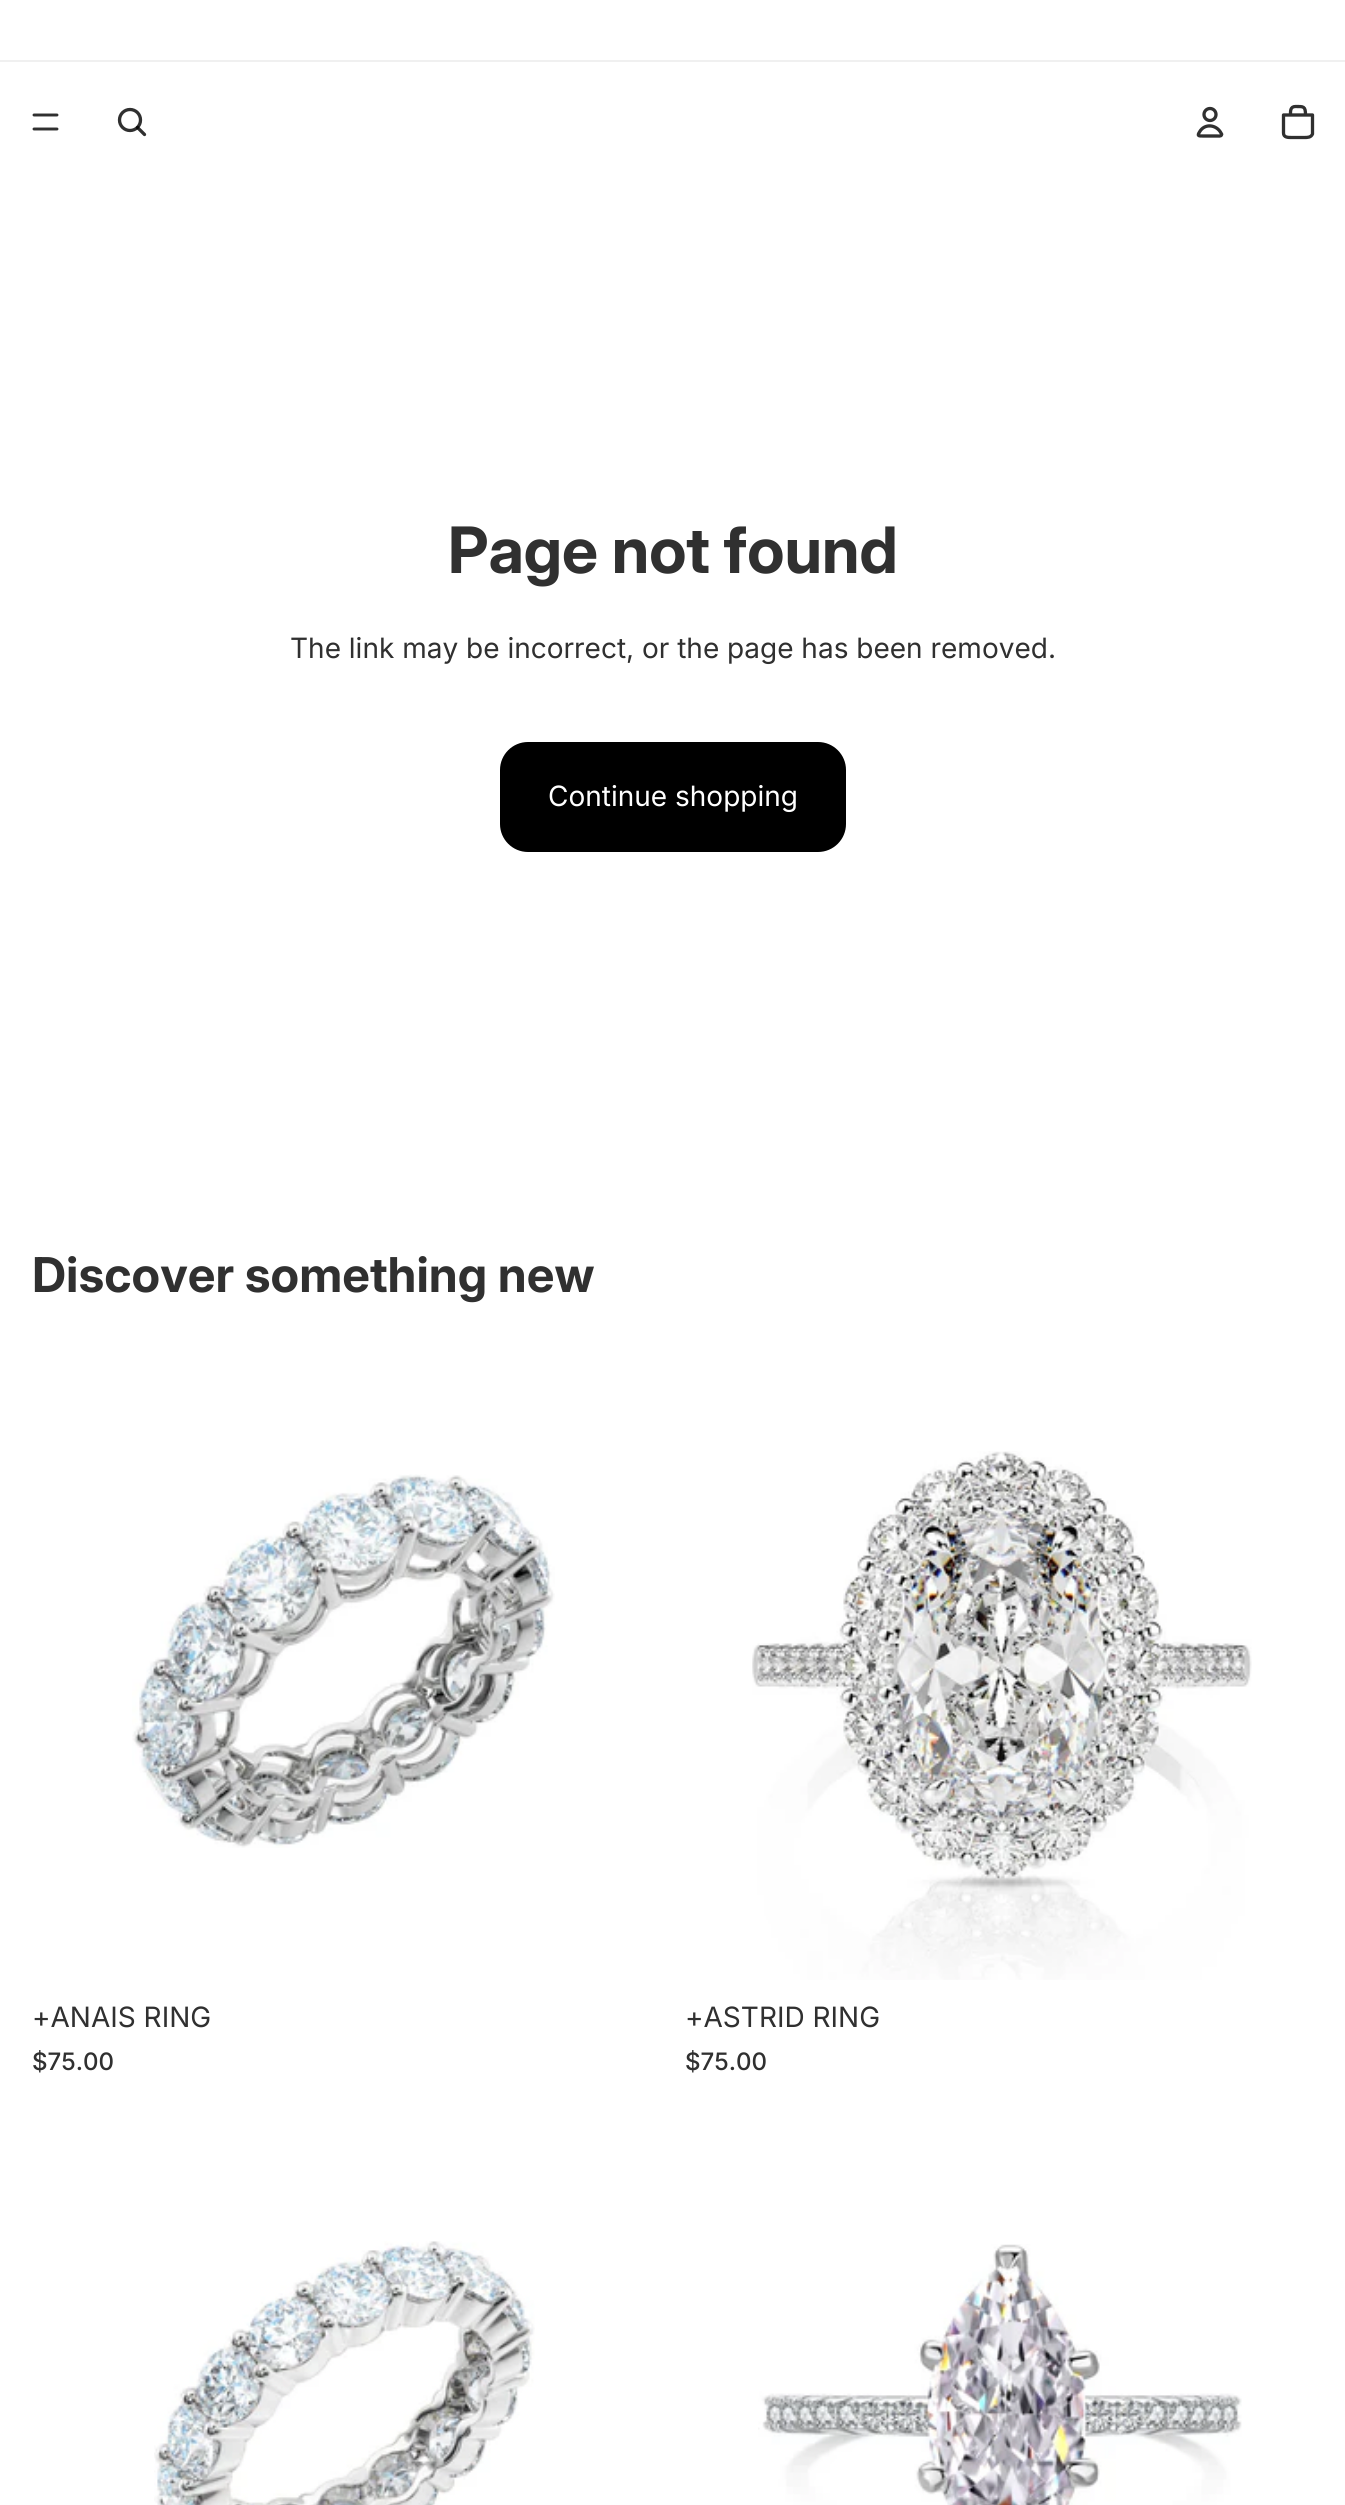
#include <cairo/cairo.h>
#include <math.h>
#include <stddef.h>

static cairo_t *cr;

static void use_color(int r, int g, int b) {
  cairo_set_source_rgb(cr, r / 255.0, g / 255.0, b / 255.0);
}

static void text(double x, double y, const char *s, const char *family, double size, int italic, int bold, int r, int g, int b) {
  cairo_select_font_face(cr, family, italic ? CAIRO_FONT_SLANT_ITALIC : CAIRO_FONT_SLANT_NORMAL,
    bold ? CAIRO_FONT_WEIGHT_BOLD : CAIRO_FONT_WEIGHT_NORMAL);
  cairo_set_font_size(cr, size);
  use_color(r, g, b);
  cairo_move_to(cr, x, y);
  cairo_show_text(cr, s);
}

static void box(double x, double y, double w, double h, int r, int g, int b) {
  use_color(r, g, b);
  cairo_rectangle(cr, x, y, w, h);
  cairo_fill(cr);
}

static void round_rect(double x, double y, double w, double h, double r) {
  cairo_new_sub_path(cr);
  cairo_arc(cr, x + w - r, y + h - r, r, 0, M_PI / 2);
  cairo_arc(cr, x + r, y + h - r, r, M_PI / 2, M_PI);
  cairo_arc(cr, x + r, y + r, r, M_PI, 1.5 * M_PI);
  cairo_arc(cr, x + w - r, y + r, r, 1.5 * M_PI, 2 * M_PI);
  cairo_close_path(cr);
}

static void picture(const char *path, double x, double y, double w, double h) {
  cairo_surface_t *image = cairo_image_surface_create_from_png(path);
  cairo_save(cr);
  cairo_set_source_surface(cr, image, x, y);
  cairo_rectangle(cr, x, y, w, h);
  cairo_fill(cr);
  cairo_restore(cr);
  cairo_surface_destroy(image);
}

static void draw(void) {
  use_color(255, 255, 255);
  cairo_paint(cr);
  box(0, 60, 1345, 2, 240, 240, 240);
  cairo_new_path(cr);
  cairo_move_to(cr, 34, 115);
  cairo_line_to(cr, 57, 115);
  cairo_move_to(cr, 34, 129);
  cairo_line_to(cr, 57, 129);
  use_color(48, 48, 48);
  cairo_set_line_width(cr, 2.9);
  cairo_set_line_cap(cr, CAIRO_LINE_CAP_ROUND);
  cairo_stroke(cr);
  cairo_arc(cr, 130, 120, 10.5, 0, 2 * M_PI);
  cairo_set_line_width(cr, 3.3);
  cairo_set_line_cap(cr, CAIRO_LINE_CAP_BUTT);
  cairo_stroke(cr);
  cairo_new_path(cr);
  cairo_move_to(cr, 137.5, 127.5);
  cairo_line_to(cr, 144.5, 134.5);
  cairo_set_source_rgba(cr, 0, 0, 0, 0.81);
  cairo_set_line_cap(cr, CAIRO_LINE_CAP_ROUND);
  cairo_set_line_join(cr, CAIRO_LINE_JOIN_ROUND);
  cairo_stroke(cr);
  cairo_arc(cr, 1210, 114.5, 6, 0, 2 * M_PI);
  use_color(48, 48, 48);
  cairo_set_line_cap(cr, CAIRO_LINE_CAP_BUTT);
  cairo_set_line_join(cr, CAIRO_LINE_JOIN_MITER);
  cairo_stroke(cr);
  cairo_new_path(cr);
  cairo_move_to(cr, 1199.5, 132);
  cairo_curve_to(cr, 1197, 136, 1198.5, 136, 1203, 136);
  cairo_line_to(cr, 1217, 136);
  cairo_curve_to(cr, 1217.5, 136, 1221, 136.5, 1221.5, 135);
  cairo_curve_to(cr, 1222, 134.5, 1221.5, 133.5, 1221, 133);
  cairo_curve_to(cr, 1216.5, 124.5, 1204.5, 123, 1199.5, 132);
  cairo_set_line_cap(cr, CAIRO_LINE_CAP_ROUND);
  cairo_set_line_join(cr, CAIRO_LINE_JOIN_ROUND);
  cairo_stroke(cr);
  cairo_new_path(cr);
  cairo_move_to(cr, 1283.5, 115);
  cairo_line_to(cr, 1312.5, 115);
  cairo_line_to(cr, 1312.5, 134);
  cairo_curve_to(cr, 1311, 137.5, 1307.5, 137.5, 1304.5, 137.5);
  cairo_line_to(cr, 1291.5, 137.5);
  cairo_curve_to(cr, 1288, 137.5, 1283.5, 137.5, 1283.5, 133);
  cairo_close_path(cr);
  cairo_move_to(cr, 1295.5, 106.5);
  cairo_curve_to(cr, 1303.5, 106.5, 1305.5, 106, 1305.5, 115);
  cairo_line_to(cr, 1290.5, 115);
  cairo_curve_to(cr, 1290.5, 111.5, 1290, 106.5, 1295.5, 106.5);
  cairo_stroke(cr);
  use_color(0, 0, 0);
  round_rect(500, 742, 346, 110, 28);
  cairo_fill(cr);
  picture("img_01.png", 132, 1474, 423, 374);
  picture("img_02.png", 752, 1451, 500, 529);
  picture("img_03.png", 154, 2241, 381, 264);
  picture("img_04.png", 758, 2244, 484, 261);
  text(448, 573, "Page not found", "Inter", 64, 0, 1, 48, 48, 48);
  text(290, 658, "The link may be incorrect, or the page has been removed.", "Inter", 28, 0, 0, 48, 48, 48);
  text(548, 806, "Continue shopping", "Inter", 28, 0, 0, 255, 255, 255);
  text(32, 1292, "Discover something new", "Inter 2", 48, 0, 1, 48, 48, 48);
  text(32, 2027, "+ANAIS RING", "Inter", 28, 0, 0, 48, 48, 48);
  text(32, 2070, "$75.00", "Inter Medium", 24, 0, 0, 48, 48, 48);
  text(685, 2027, "+ASTRID RING", "Inter", 28, 0, 0, 48, 48, 48);
  text(685, 2070, "$75.00", "Inter Medium", 24, 0, 0, 48, 48, 48);
}

int main(void) {
  cairo_surface_t *surface = cairo_image_surface_create(CAIRO_FORMAT_RGB24, 1345, 2505);
  cr = cairo_create(surface);
  cairo_font_options_t *options = cairo_font_options_create();
  cairo_font_options_set_hint_metrics(options, CAIRO_HINT_METRICS_OFF);
  cairo_font_options_set_hint_style(options, CAIRO_HINT_STYLE_NONE);
  cairo_set_font_options(cr, options);
  cairo_set_miter_limit(cr, 4);
  draw();
  cairo_surface_write_to_png(surface, "out.png");
  cairo_font_options_destroy(options);
  cairo_destroy(cr);
  cairo_surface_destroy(surface);
  return 0;
}
